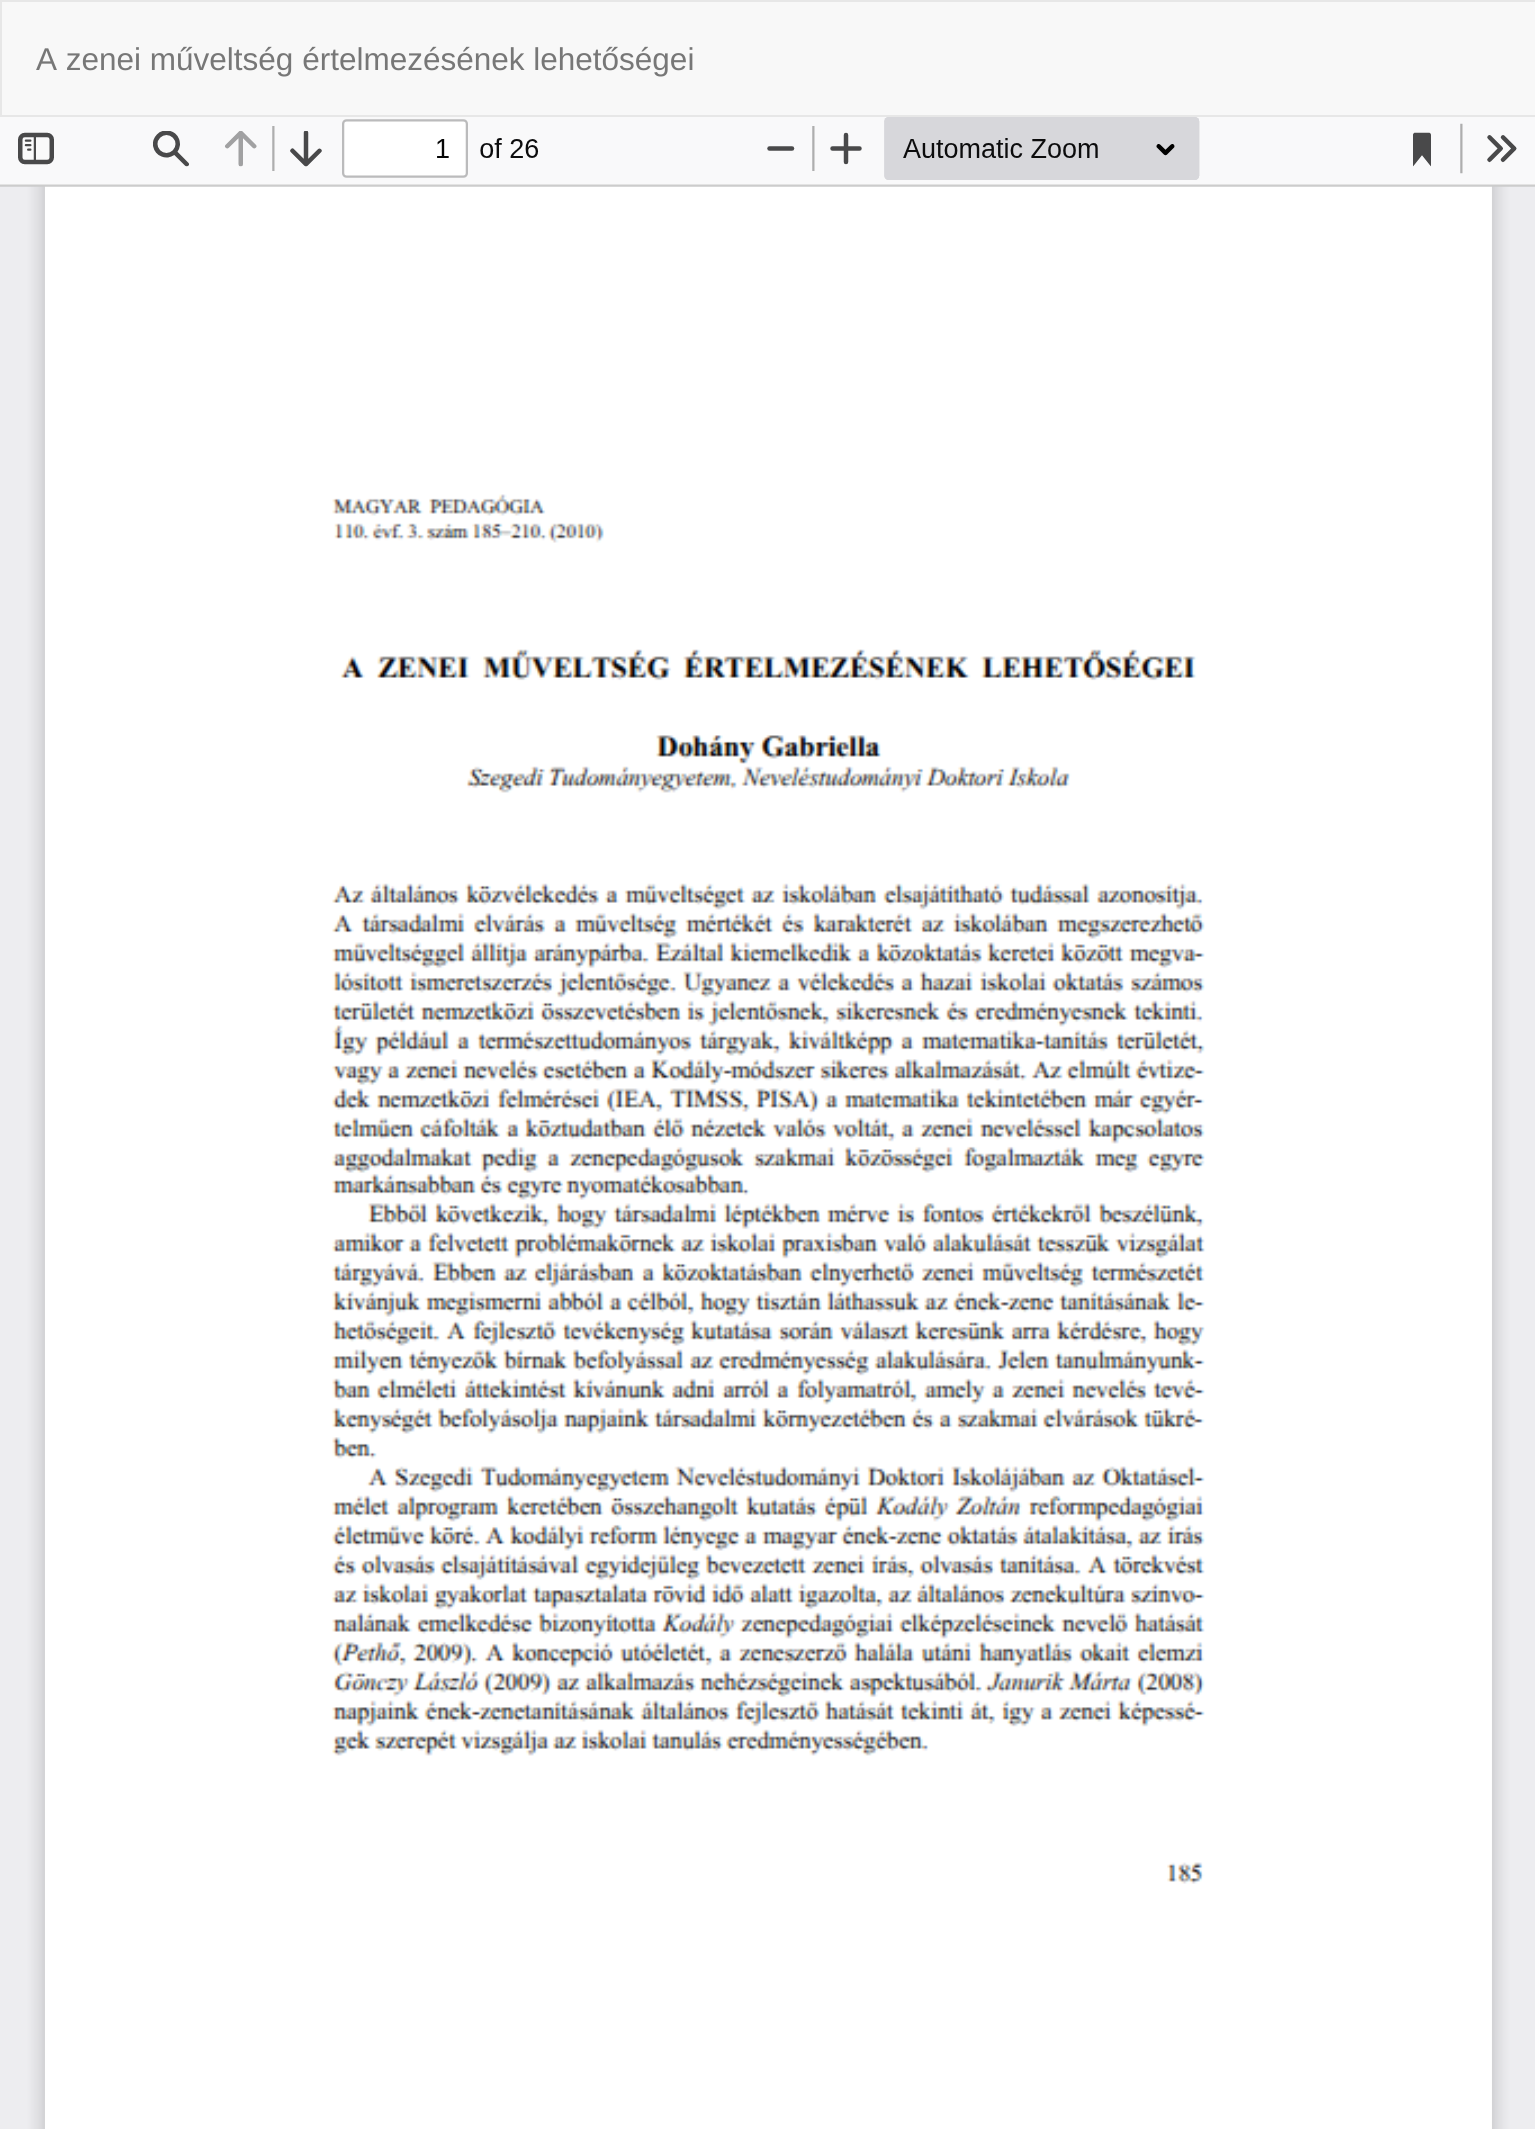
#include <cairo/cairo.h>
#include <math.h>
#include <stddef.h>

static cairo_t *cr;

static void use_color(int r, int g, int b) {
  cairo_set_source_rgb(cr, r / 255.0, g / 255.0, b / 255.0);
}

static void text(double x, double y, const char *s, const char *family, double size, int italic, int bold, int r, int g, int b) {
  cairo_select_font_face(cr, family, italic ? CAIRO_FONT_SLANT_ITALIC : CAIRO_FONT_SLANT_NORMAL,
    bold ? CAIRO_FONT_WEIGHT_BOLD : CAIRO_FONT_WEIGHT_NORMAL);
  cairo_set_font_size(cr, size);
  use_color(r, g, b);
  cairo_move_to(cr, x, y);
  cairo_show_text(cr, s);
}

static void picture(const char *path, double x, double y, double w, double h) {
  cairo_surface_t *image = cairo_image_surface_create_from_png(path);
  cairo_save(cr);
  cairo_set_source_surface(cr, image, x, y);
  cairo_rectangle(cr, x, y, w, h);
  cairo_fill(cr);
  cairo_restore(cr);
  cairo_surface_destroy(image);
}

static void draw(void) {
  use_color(255, 255, 255);
  cairo_paint(cr);
  use_color(248, 248, 248);
  cairo_rectangle(cr, 1, 1, 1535, 115);
  cairo_fill_preserve(cr);
  use_color(231, 231, 231);
  cairo_stroke(cr);
  picture("img_01.png", 0, 117, 1535, 2012);
  text(36, 70, "A zenei műveltség értelmezésének lehetőségei", "Liberation Sans", 31.5, 0, 0, 119, 119, 119);
}

int main(void) {
  cairo_surface_t *surface = cairo_image_surface_create(CAIRO_FORMAT_RGB24, 1535, 2129);
  cr = cairo_create(surface);
  cairo_font_options_t *options = cairo_font_options_create();
  cairo_font_options_set_hint_metrics(options, CAIRO_HINT_METRICS_OFF);
  cairo_font_options_set_hint_style(options, CAIRO_HINT_STYLE_NONE);
  cairo_set_font_options(cr, options);
  cairo_set_miter_limit(cr, 4);
  draw();
  cairo_surface_write_to_png(surface, "out.png");
  cairo_font_options_destroy(options);
  cairo_destroy(cr);
  cairo_surface_destroy(surface);
  return 0;
}
